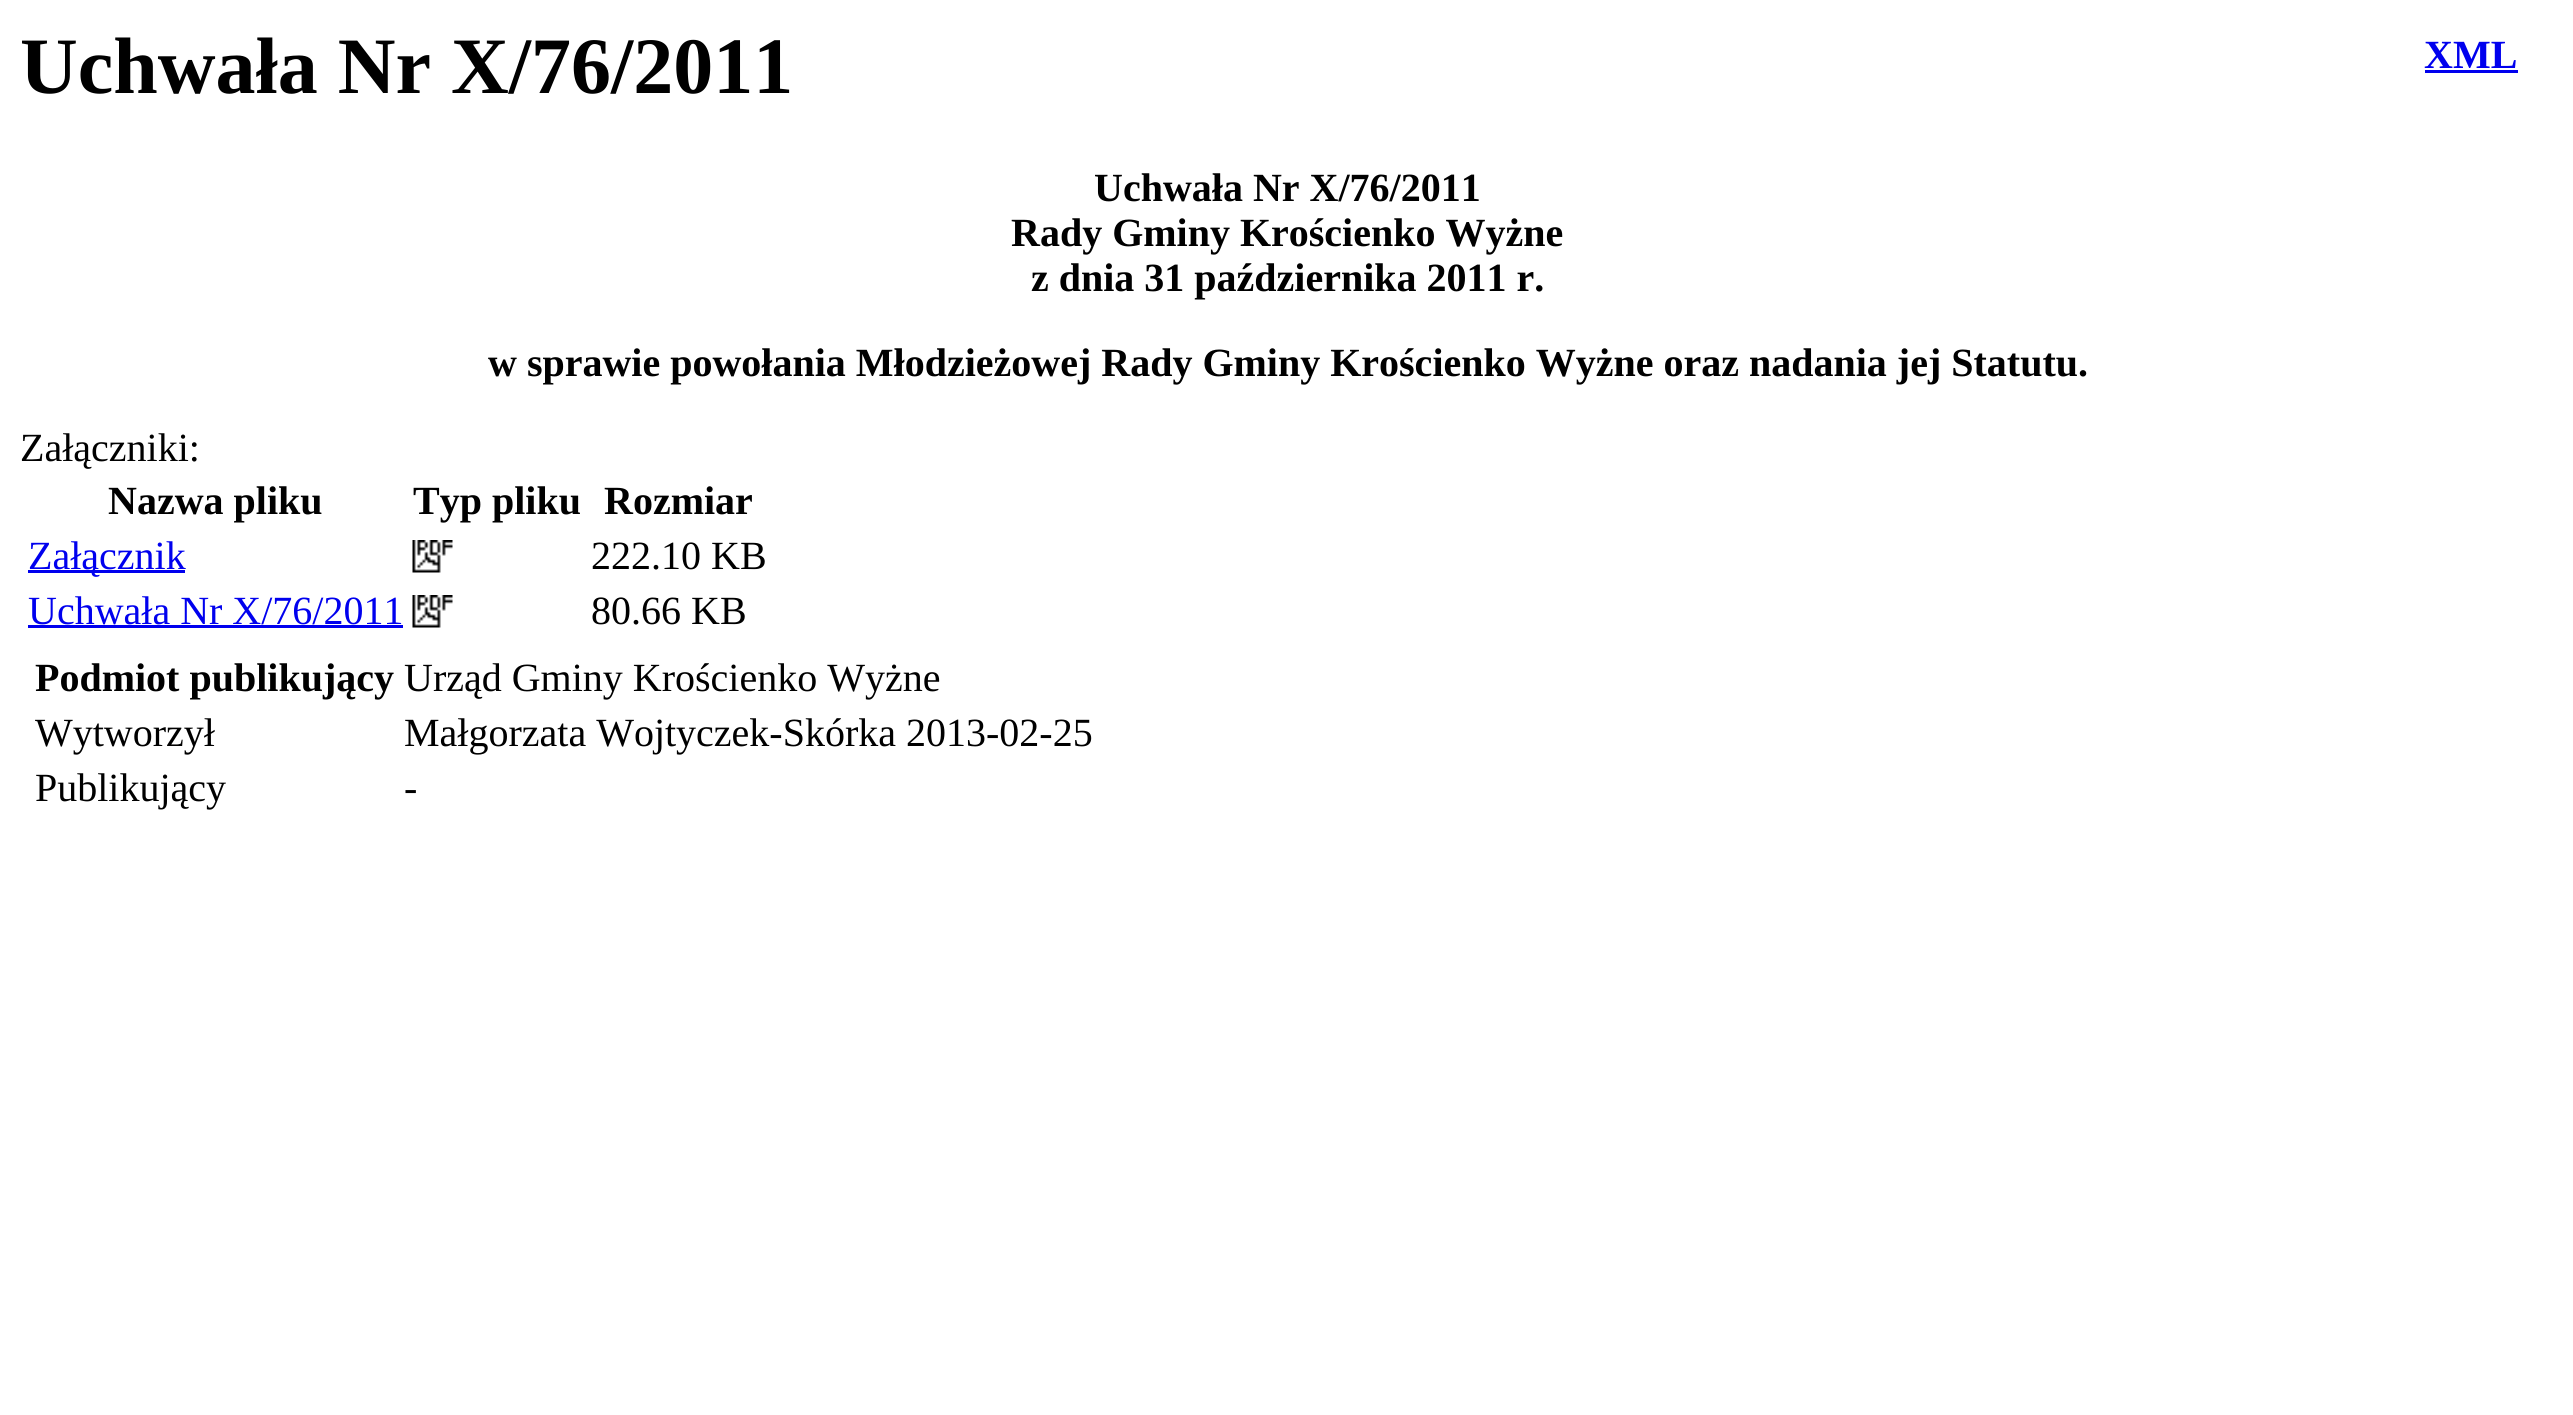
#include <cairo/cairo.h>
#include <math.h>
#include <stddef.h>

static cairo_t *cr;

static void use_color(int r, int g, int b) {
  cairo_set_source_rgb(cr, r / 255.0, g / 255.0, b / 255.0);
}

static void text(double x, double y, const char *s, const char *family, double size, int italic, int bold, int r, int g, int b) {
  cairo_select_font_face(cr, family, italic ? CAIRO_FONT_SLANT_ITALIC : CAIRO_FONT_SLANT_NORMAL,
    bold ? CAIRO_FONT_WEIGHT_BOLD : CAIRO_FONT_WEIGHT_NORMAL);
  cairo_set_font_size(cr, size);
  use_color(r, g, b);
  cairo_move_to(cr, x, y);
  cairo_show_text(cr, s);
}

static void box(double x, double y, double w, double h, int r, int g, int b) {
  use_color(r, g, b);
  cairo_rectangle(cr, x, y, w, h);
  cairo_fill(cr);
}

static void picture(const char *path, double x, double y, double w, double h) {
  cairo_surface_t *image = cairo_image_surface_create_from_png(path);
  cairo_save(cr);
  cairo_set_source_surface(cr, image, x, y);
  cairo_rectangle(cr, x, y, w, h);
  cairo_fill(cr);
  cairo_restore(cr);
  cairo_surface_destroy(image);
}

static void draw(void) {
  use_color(255, 255, 255);
  cairo_paint(cr);
  box(28, 570, 157, 3, 0, 0, 238);
  picture("img_01.png", 412, 540, 41, 33);
  box(28, 625, 375, 3, 0, 0, 238);
  picture("img_01.png", 412, 595, 41, 33);
  box(2425, 70, 93, 3, 0, 0, 238);
  text(20, 93, "Uchwała Nr X/76/2011", "Liberation Serif", 80, 0, 1, 0, 0, 0);
  text(1094, 201, "Uchwała Nr X/76/2011", "Liberation Serif", 40, 0, 1, 0, 0, 0);
  text(1011, 246, "Rady Gminy Krościenko Wyżne", "Liberation Serif", 40, 0, 1, 0, 0, 0);
  text(1031, 291, "z dnia 31 października 2011 r.", "Liberation Serif", 40, 0, 1, 0, 0, 0);
  text(488, 376, "w sprawie powołania Młodzieżowej Rady Gminy Krościenko Wyżne oraz nadania jej Statutu.", "Liberation Serif", 40, 0, 1, 0, 0, 0);
  text(20, 461, "Załączniki:", "Liberation Serif", 40, 0, 0, 0, 0, 0);
  text(108, 514, "Nazwa pliku", "Liberation Serif", 40, 0, 1, 0, 0, 0);
  text(413, 514, "Typ pliku", "Liberation Serif", 40, 0, 1, 0, 0, 0);
  text(604, 514, "Rozmiar", "Liberation Serif", 40, 0, 1, 0, 0, 0);
  text(28, 569, "Załącznik", "Liberation Serif", 40, 0, 0, 0, 0, 238);
  text(591, 569, "222.10 KB", "Liberation Serif", 40, 0, 0, 0, 0, 0);
  text(28, 624, "Uchwała Nr X/76/2011", "Liberation Serif", 40, 0, 0, 0, 0, 238);
  text(591, 624, "80.66 KB", "Liberation Serif", 40, 0, 0, 0, 0, 0);
  text(35, 691, "Podmiot publikujący", "Liberation Serif", 40, 0, 1, 0, 0, 0);
  text(404, 691, "Urząd Gminy Krościenko Wyżne", "Liberation Serif", 40, 0, 0, 0, 0, 0);
  text(35, 746, "Wytworzył", "Liberation Serif", 40, 0, 0, 0, 0, 0);
  text(404, 746, "Małgorzata Wojtyczek-Skórka 2013-02-25", "Liberation Serif", 40, 0, 0, 0, 0, 0);
  text(35, 801, "Publikujący", "Liberation Serif", 40, 0, 0, 0, 0, 0);
  text(404, 801, "-", "Liberation Serif", 40, 0, 0, 0, 0, 0);
  text(2424, 68, "XML", "Liberation Serif", 40, 0, 1, 0, 0, 238);
}

int main(void) {
  cairo_surface_t *surface = cairo_image_surface_create(CAIRO_FORMAT_RGB24, 2573, 1415);
  cr = cairo_create(surface);
  cairo_font_options_t *options = cairo_font_options_create();
  cairo_font_options_set_hint_metrics(options, CAIRO_HINT_METRICS_OFF);
  cairo_font_options_set_hint_style(options, CAIRO_HINT_STYLE_NONE);
  cairo_set_font_options(cr, options);
  cairo_set_miter_limit(cr, 4);
  draw();
  cairo_surface_write_to_png(surface, "out.png");
  cairo_font_options_destroy(options);
  cairo_destroy(cr);
  cairo_surface_destroy(surface);
  return 0;
}
